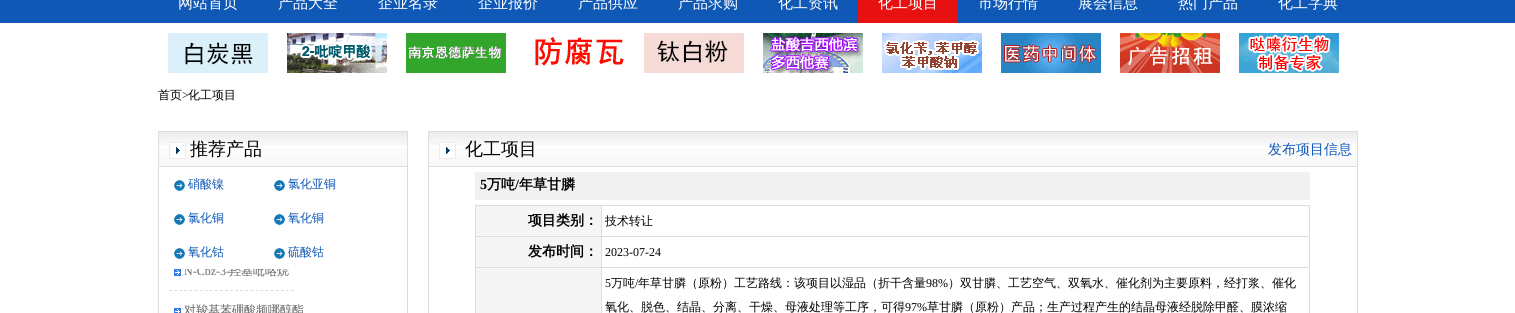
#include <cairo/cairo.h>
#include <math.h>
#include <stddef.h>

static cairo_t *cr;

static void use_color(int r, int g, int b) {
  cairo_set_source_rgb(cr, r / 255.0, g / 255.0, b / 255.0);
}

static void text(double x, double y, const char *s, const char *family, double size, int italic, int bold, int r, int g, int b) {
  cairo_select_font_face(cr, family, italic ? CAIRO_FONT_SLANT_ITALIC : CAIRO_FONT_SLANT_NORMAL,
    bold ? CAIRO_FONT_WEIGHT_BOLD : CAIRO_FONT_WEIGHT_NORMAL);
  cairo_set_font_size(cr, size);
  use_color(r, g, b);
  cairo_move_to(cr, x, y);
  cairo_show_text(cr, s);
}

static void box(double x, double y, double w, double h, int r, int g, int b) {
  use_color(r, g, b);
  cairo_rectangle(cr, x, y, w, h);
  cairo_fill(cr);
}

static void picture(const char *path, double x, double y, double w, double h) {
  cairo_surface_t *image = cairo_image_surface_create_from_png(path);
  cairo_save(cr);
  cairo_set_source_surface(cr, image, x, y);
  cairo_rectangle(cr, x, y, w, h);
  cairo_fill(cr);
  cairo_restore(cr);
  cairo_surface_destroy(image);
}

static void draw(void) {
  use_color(255, 255, 255);
  cairo_paint(cr);
  box(0, 0, 1515, 23, 15, 88, 182);
  box(858, 0, 100, 23, 231, 17, 17);
  picture("img_01.png", 168, 33, 100, 40);
  picture("img_02.png", 287, 33, 100, 40);
  picture("img_03.png", 406, 33, 100, 40);
  picture("img_04.png", 535, 37, 89, 29);
  picture("img_05.png", 644, 33, 100, 40);
  picture("img_06.png", 763, 33, 100, 40);
  picture("img_07.png", 882, 33, 100, 40);
  picture("img_08.png", 1001, 33, 100, 40);
  picture("img_09.png", 1120, 33, 100, 40);
  picture("img_10.png", 1239, 33, 100, 40);
  cairo_rectangle(cr, 158.5, 131.5, 249, 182);
  use_color(221, 221, 221);
  cairo_set_line_width(cr, 1);
  cairo_stroke(cr);
  picture("img_11.png", 159, 132, 248, 34);
  box(159, 166, 248, 1, 221, 221, 221);
  picture("img_12.png", 169, 142, 17, 17);
  picture("img_13.png", 174, 180, 11, 11);
  picture("img_13.png", 274, 180, 11, 11);
  picture("img_13.png", 174, 214, 11, 11);
  picture("img_13.png", 274, 214, 11, 11);
  picture("img_13.png", 174, 248, 11, 11);
  picture("img_13.png", 274, 248, 11, 11);
  cairo_new_path(cr);
  cairo_move_to(cr, 169, 290.5);
  cairo_line_to(cr, 294, 290.5);
  cairo_set_dash(cr, (double[]){3, 2.08}, 2, 0);
  cairo_stroke(cr);
  picture("img_14.png", 174, 269, 7, 7);
  picture("img_15.png", 174, 308, 7, 5);
  cairo_rectangle(cr, 428.5, 131.5, 929, 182);
  cairo_set_dash(cr, NULL, 0, 0);
  cairo_stroke(cr);
  picture("img_16.png", 429, 132, 928, 34);
  box(429, 166, 928, 1, 221, 221, 221);
  picture("img_12.png", 439, 142, 17, 17);
  box(475, 172, 835, 28, 241, 241, 241);
  box(475, 205, 835, 108, 221, 221, 221);
  box(476, 206, 125, 30, 245, 245, 245);
  box(602, 206, 707, 30, 255, 255, 255);
  box(476, 237, 125, 30, 245, 245, 245);
  box(602, 237, 707, 30, 255, 255, 255);
  box(476, 268, 125, 45, 245, 245, 245);
  box(602, 268, 707, 45, 255, 255, 255);
  text(178, 8, "网站首页", "WenQuanYi Zen Hei Medium", 15, 0, 0, 255, 255, 255);
  text(278, 8, "产品大全", "WenQuanYi Zen Hei Medium", 15, 0, 0, 255, 255, 255);
  text(378, 8, "企业名录", "WenQuanYi Zen Hei Medium", 15, 0, 0, 255, 255, 255);
  text(478, 8, "企业报价", "WenQuanYi Zen Hei Medium", 15, 0, 0, 255, 255, 255);
  text(578, 8, "产品供应", "WenQuanYi Zen Hei Medium", 15, 0, 0, 255, 255, 255);
  text(678, 8, "产品求购", "WenQuanYi Zen Hei Medium", 15, 0, 0, 255, 255, 255);
  text(778, 8, "化工资讯", "WenQuanYi Zen Hei Medium", 15, 0, 0, 255, 255, 255);
  text(878, 8, "化工项目", "WenQuanYi Zen Hei Medium", 15, 0, 0, 255, 255, 255);
  text(978, 8, "市场行情", "WenQuanYi Zen Hei Medium", 15, 0, 0, 255, 255, 255);
  text(1078, 8, "展会信息", "WenQuanYi Zen Hei Medium", 15, 0, 0, 255, 255, 255);
  text(1178, 8, "热门产品", "WenQuanYi Zen Hei Medium", 15, 0, 0, 255, 255, 255);
  text(1278, 8, "化工字典", "WenQuanYi Zen Hei Medium", 15, 0, 0, 255, 255, 255);
  text(158, 99, "首页", "WenQuanYi Zen Hei Medium", 12, 0, 0, 0, 0, 0);
  text(182, 99, ">", "Liberation Serif", 12, 0, 0, 0, 0, 0);
  text(188, 99, "化工项目", "WenQuanYi Zen Hei Medium", 12, 0, 0, 0, 0, 0);
  text(190, 155, "推荐产品", "WenQuanYi Zen Hei Medium", 18, 0, 0, 0, 0, 0);
  text(188, 188, "硝酸镍", "WenQuanYi Zen Hei Medium", 12, 0, 0, 15, 88, 182);
  text(288, 188, "氯化亚铜", "WenQuanYi Zen Hei Medium", 12, 0, 0, 15, 88, 182);
  text(188, 222, "氯化铜", "WenQuanYi Zen Hei Medium", 12, 0, 0, 15, 88, 182);
  text(288, 222, "氧化铜", "WenQuanYi Zen Hei Medium", 12, 0, 0, 15, 88, 182);
  text(188, 256, "氧化钴", "WenQuanYi Zen Hei Medium", 12, 0, 0, 15, 88, 182);
  text(288, 256, "硫酸钴", "WenQuanYi Zen Hei Medium", 12, 0, 0, 15, 88, 182);
  cairo_save(cr);
  cairo_rectangle(cr, 169, 269, 220, 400);
  cairo_clip(cr);
  text(184, 275, "N-Cbz-3-", "Liberation Serif", 12, 0, 0, 102, 102, 102);
  text(229, 275, "羟基吡咯烷", "WenQuanYi Zen Hei Medium", 12, 0, 0, 102, 102, 102);
  cairo_restore(cr);
  text(184, 314, "对羧基苯硼酸频哪醇酯", "WenQuanYi Zen Hei Medium", 12, 0, 0, 102, 102, 102);
  text(465, 155, "化工项目", "WenQuanYi Zen Hei Medium", 18, 0, 0, 0, 0, 0);
  text(1268, 154, "发布项目信息", "WenQuanYi Zen Hei Medium", 14, 0, 0, 15, 88, 182);
  text(480, 189, "5", "Liberation Serif", 14, 0, 1, 0, 0, 0);
  text(487, 189, "万吨", "WenQuanYi Zen Hei", 14, 0, 1, 0, 0, 0);
  text(515, 189, "/", "Liberation Serif", 14, 0, 1, 0, 0, 0);
  text(519, 189, "年草甘膦", "WenQuanYi Zen Hei", 14, 0, 1, 0, 0, 0);
  text(528, 225, "项目类别：", "WenQuanYi Zen Hei", 14, 0, 1, 0, 0, 0);
  text(605, 225, "技术转让", "WenQuanYi Zen Hei Medium", 12, 0, 0, 0, 0, 0);
  text(528, 256, "发布时间：", "WenQuanYi Zen Hei", 14, 0, 1, 0, 0, 0);
  text(605, 256, "2023-07-24", "Liberation Serif", 12, 0, 0, 0, 0, 0);
  text(605, 287, "5", "Liberation Serif", 12, 0, 0, 0, 0, 0);
  text(611, 287, "万吨", "WenQuanYi Zen Hei Medium", 12, 0, 0, 0, 0, 0);
  text(635, 287, "/", "Liberation Serif", 12, 0, 0, 0, 0, 0);
  text(638, 287, "年草甘膦（原粉）工艺路线：该项目以湿品（折干含量", "WenQuanYi Zen Hei Medium", 12, 0, 0, 0, 0, 0);
  text(926, 287, "98%", "Liberation Serif", 12, 0, 0, 0, 0, 0);
  text(948, 287, "）双甘膦、工艺空气、双氧水、催化剂为主要原料，经打浆、催化", "WenQuanYi Zen Hei Medium", 12, 0, 0, 0, 0, 0);
  text(605, 311, "氧化、脱色、结晶、分离、干燥、母液处理等工序，可得", "WenQuanYi Zen Hei Medium", 12, 0, 0, 0, 0, 0);
  text(905, 311, "97%", "Liberation Serif", 12, 0, 0, 0, 0, 0);
  text(927, 311, "草甘膦（原粉）产品；生产过程产生的结晶母液经脱除甲醛、膜浓缩", "WenQuanYi Zen Hei Medium", 12, 0, 0, 0, 0, 0);
}

int main(void) {
  cairo_surface_t *surface = cairo_image_surface_create(CAIRO_FORMAT_RGB24, 1515, 313);
  cr = cairo_create(surface);
  cairo_font_options_t *options = cairo_font_options_create();
  cairo_font_options_set_hint_metrics(options, CAIRO_HINT_METRICS_OFF);
  cairo_font_options_set_hint_style(options, CAIRO_HINT_STYLE_NONE);
  cairo_set_font_options(cr, options);
  cairo_set_miter_limit(cr, 4);
  draw();
  cairo_surface_write_to_png(surface, "out.png");
  cairo_font_options_destroy(options);
  cairo_destroy(cr);
  cairo_surface_destroy(surface);
  return 0;
}
